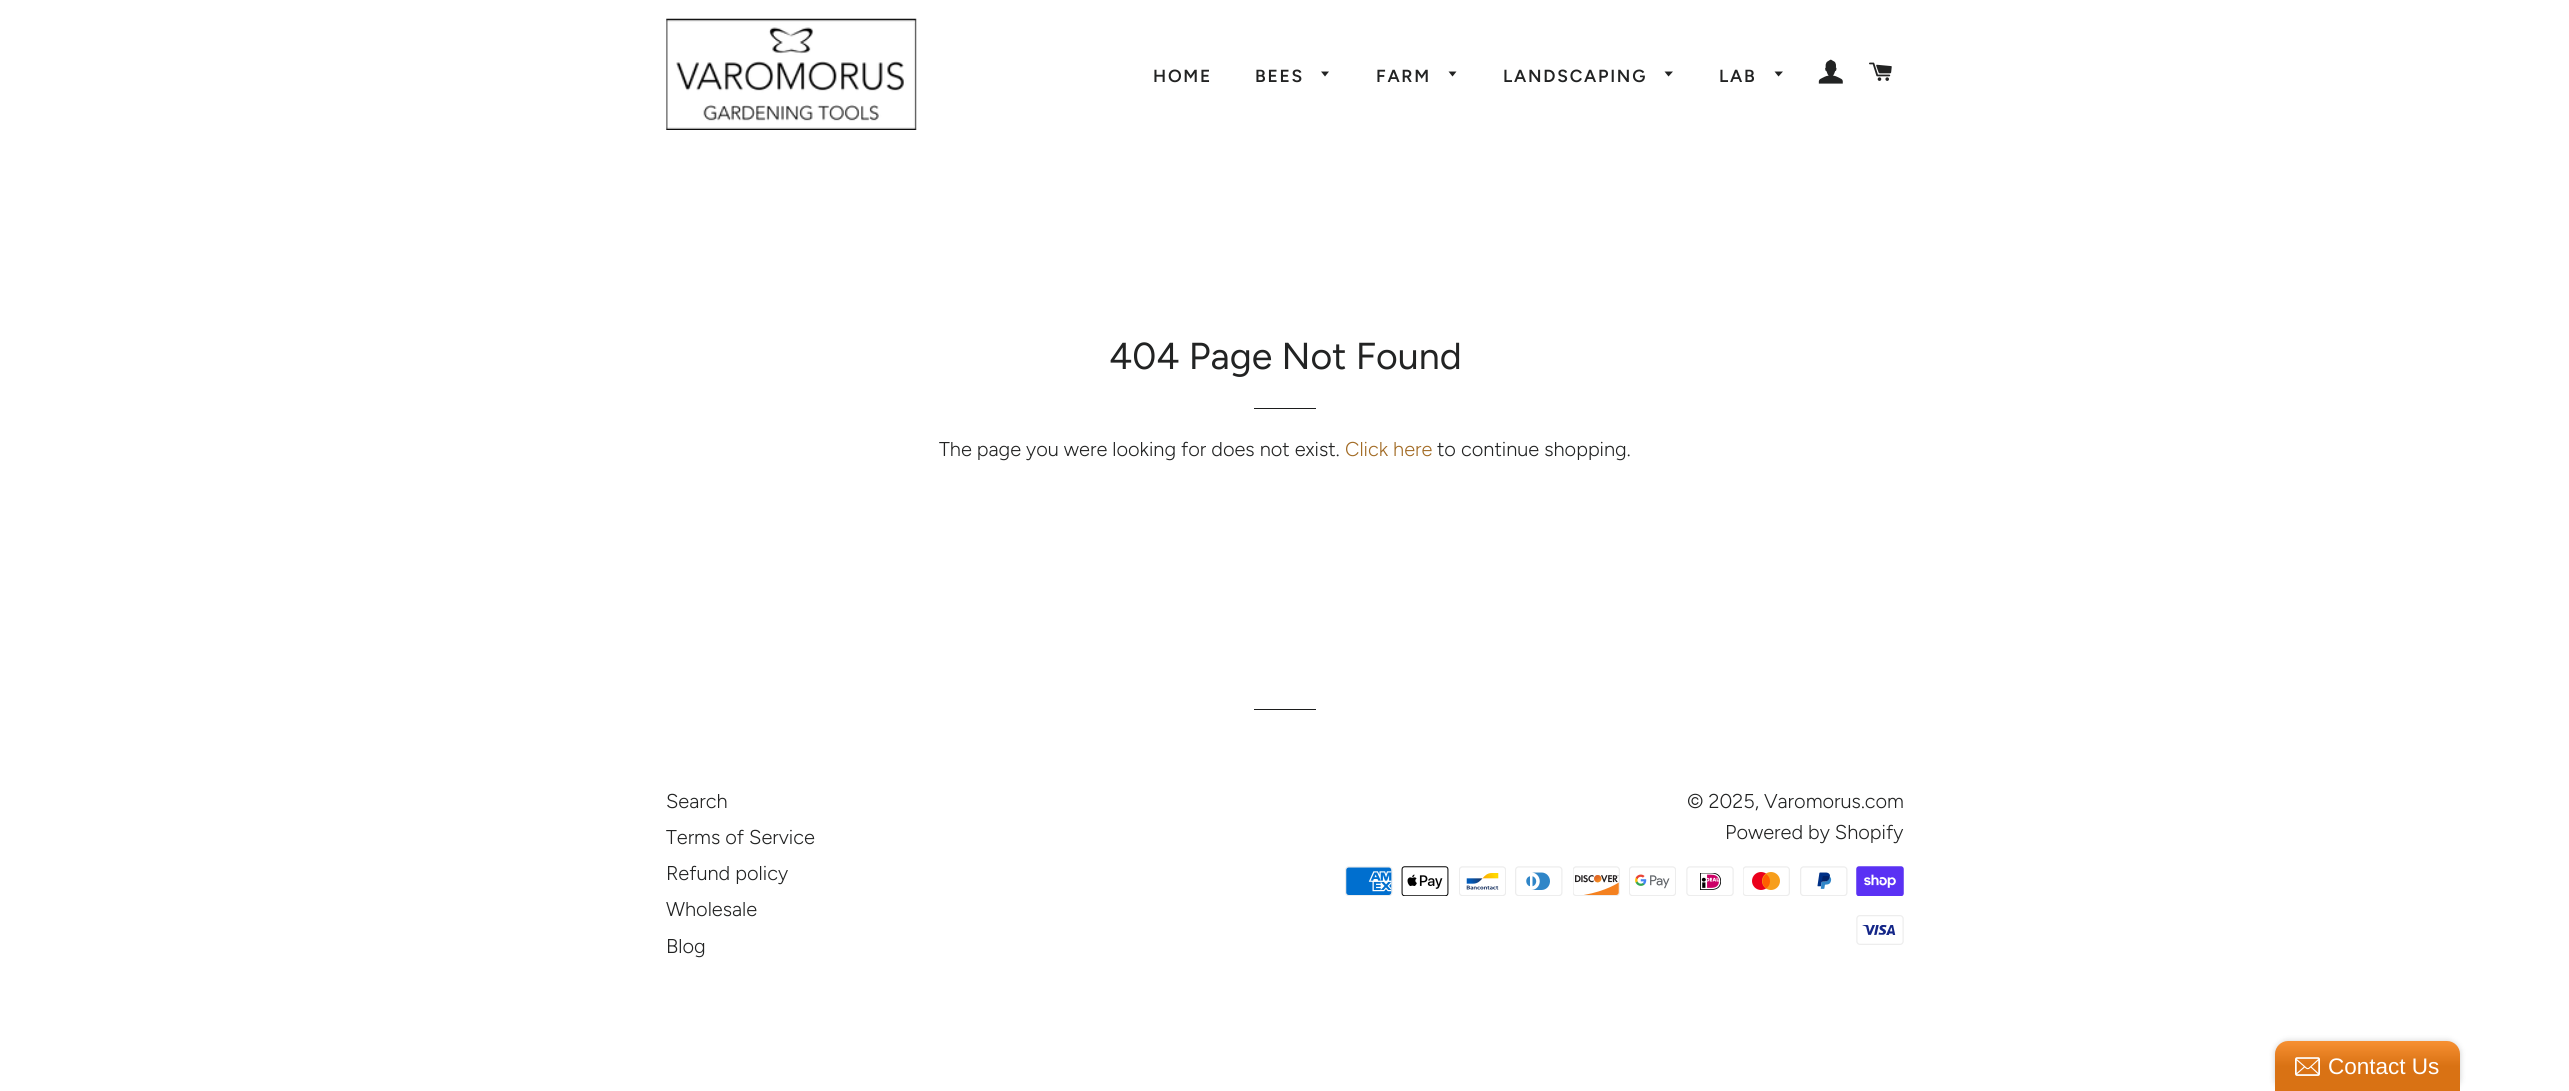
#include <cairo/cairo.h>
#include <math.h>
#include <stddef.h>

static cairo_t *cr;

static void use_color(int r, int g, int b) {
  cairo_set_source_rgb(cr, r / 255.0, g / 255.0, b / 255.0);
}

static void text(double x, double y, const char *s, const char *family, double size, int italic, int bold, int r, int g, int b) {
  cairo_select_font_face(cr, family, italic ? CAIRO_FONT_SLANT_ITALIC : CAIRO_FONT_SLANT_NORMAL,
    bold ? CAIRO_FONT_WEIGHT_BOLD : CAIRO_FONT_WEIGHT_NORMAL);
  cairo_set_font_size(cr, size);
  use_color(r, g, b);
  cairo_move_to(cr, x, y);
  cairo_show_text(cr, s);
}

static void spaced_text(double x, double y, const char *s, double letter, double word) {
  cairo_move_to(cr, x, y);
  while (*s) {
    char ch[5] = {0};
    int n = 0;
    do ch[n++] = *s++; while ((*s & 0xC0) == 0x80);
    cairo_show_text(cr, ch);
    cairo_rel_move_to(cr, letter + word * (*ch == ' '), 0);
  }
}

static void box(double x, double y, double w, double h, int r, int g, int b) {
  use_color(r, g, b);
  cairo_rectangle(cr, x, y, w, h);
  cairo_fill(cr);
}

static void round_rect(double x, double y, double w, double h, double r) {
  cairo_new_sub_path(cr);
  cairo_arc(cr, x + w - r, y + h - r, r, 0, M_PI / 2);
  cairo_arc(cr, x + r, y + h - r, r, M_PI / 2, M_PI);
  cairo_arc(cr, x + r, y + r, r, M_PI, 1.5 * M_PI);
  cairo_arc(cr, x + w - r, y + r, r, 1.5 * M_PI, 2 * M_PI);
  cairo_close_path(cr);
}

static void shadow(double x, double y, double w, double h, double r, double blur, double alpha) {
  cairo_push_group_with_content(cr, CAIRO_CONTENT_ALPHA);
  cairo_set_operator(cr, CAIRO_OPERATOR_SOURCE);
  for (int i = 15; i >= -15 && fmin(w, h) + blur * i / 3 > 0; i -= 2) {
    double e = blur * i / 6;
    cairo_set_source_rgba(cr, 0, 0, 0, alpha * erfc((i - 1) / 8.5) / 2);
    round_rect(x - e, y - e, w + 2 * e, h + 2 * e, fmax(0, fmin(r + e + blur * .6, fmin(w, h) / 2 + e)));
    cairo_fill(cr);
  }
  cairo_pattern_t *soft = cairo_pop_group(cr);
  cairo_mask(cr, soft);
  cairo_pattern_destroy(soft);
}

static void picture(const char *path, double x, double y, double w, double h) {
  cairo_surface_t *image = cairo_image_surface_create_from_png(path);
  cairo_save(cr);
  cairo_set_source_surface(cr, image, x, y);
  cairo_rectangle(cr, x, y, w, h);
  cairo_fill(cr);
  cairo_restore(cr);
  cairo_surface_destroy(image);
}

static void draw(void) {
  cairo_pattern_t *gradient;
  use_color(255, 255, 255);
  cairo_paint(cr);
  picture("img_01.png", 666, 18, 251, 112);
  use_color(34, 35, 35);
  cairo_new_path(cr);
  cairo_move_to(cr, 1321, 71.5);
  cairo_line_to(cr, 1325, 76.5);
  cairo_line_to(cr, 1329, 71.5);
  cairo_close_path(cr);
  cairo_fill(cr);
  cairo_new_path(cr);
  cairo_move_to(cr, 1448.5, 71.5);
  cairo_line_to(cr, 1452.5, 76.5);
  cairo_line_to(cr, 1456.5, 71.5);
  cairo_close_path(cr);
  cairo_fill(cr);
  cairo_new_path(cr);
  cairo_move_to(cr, 1664.5, 71.5);
  cairo_line_to(cr, 1668.5, 76.5);
  cairo_line_to(cr, 1673, 71.5);
  cairo_close_path(cr);
  cairo_fill(cr);
  cairo_new_path(cr);
  cairo_move_to(cr, 1774.5, 71.5);
  cairo_line_to(cr, 1778.5, 76.5);
  cairo_line_to(cr, 1783, 71.5);
  cairo_close_path(cr);
  cairo_fill(cr);
  picture("img_02.png", 1818, 59, 25, 25);
  picture("img_03.png", 1869, 62, 23, 19);
  box(1254, 408, 62, 1, 28, 29, 29);
  box(1254, 709, 62, 1, 28, 29, 29);
  picture("img_04.png", 1345, 866, 48, 30);
  picture("img_05.png", 1401, 866, 48, 30);
  picture("img_06.png", 1459, 866, 47, 30);
  picture("img_07.png", 1515, 866, 48, 30);
  picture("img_08.png", 1573, 866, 47, 30);
  picture("img_09.png", 1629, 866, 47, 30);
  picture("img_10.png", 1686, 866, 48, 30);
  picture("img_11.png", 1743, 866, 47, 30);
  picture("img_12.png", 1800, 866, 48, 30);
  picture("img_13.png", 1856, 866, 48, 30);
  picture("img_14.png", 1856, 915, 48, 30);
  use_color(0, 0, 0);
  shadow(2275, 1041, 185, 50, 13, 3, 0.2);
  gradient = cairo_pattern_create_linear(2368, 1041, 2368, 1091);
  cairo_pattern_add_color_stop_rgba(gradient, 0, 0.969, 0.565, 0.196, 1);
  cairo_pattern_add_color_stop_rgba(gradient, 0.5, 0.851, 0.447, 0.078, 1);
  cairo_set_source(cr, gradient);
  cairo_pattern_destroy(gradient);
  cairo_new_path(cr);
  cairo_move_to(cr, 2288, 1041);
  cairo_line_to(cr, 2447, 1041);
  cairo_curve_to(cr, 2454, 1041, 2460, 1047, 2460, 1054);
  cairo_line_to(cr, 2460, 1091);
  cairo_line_to(cr, 2275, 1091);
  cairo_line_to(cr, 2275, 1054);
  cairo_curve_to(cr, 2275, 1047, 2281, 1041, 2288, 1041);
  cairo_close_path(cr);
  cairo_fill(cr);
  picture("img_15.png", 2295, 1057, 25, 19);
  cairo_select_font_face(cr, "Figtree SemiBold", CAIRO_FONT_SLANT_NORMAL, CAIRO_FONT_WEIGHT_NORMAL);
  cairo_set_font_size(cr, 17.5);
  use_color(34, 35, 35);
  spaced_text(1153, 82, "HOME", 1.75, 0);
  spaced_text(1255, 82, "BEES", 1.75, 0);
  spaced_text(1376, 82, "FARM", 1.75, 0);
  spaced_text(1503, 82, "LANDSCAPING", 1.75, 0);
  spaced_text(1719, 82, "LAB", 1.75, 0);
  text(1109, 369, "404 Page Not Found", "Figtree", 37.5, 0, 0, 34, 35, 35);
  text(939, 456, "The page you were looking for does not exist.", "Figtree Light", 20, 0, 0, 34, 35, 35);
  text(1345, 456, "Click here", "Figtree Light", 20, 0, 0, 162, 107, 37);
  text(1437, 456, "to continue shopping.", "Figtree Light", 20, 0, 0, 34, 35, 35);
  text(666, 808, "Search", "Figtree Light", 20, 0, 0, 34, 35, 35);
  text(666, 844, "Terms of Service", "Figtree Light", 20, 0, 0, 34, 35, 35);
  text(666, 880, "Refund policy", "Figtree Light", 20, 0, 0, 34, 35, 35);
  text(666, 916, "Wholesale", "Figtree Light", 20, 0, 0, 34, 35, 35);
  text(666, 953, "Blog", "Figtree Light", 20, 0, 0, 34, 35, 35);
  text(1687, 808, "© 2025, Varomorus.com", "Figtree Light", 20, 0, 0, 34, 35, 35);
  text(1725, 839, "Powered by Shopify", "Figtree Light", 20, 0, 0, 34, 35, 35);
  text(2328, 1074, "Contact Us", "Liberation Sans", 22.5, 0, 0, 255, 255, 255);
}

int main(void) {
  cairo_surface_t *surface = cairo_image_surface_create(CAIRO_FORMAT_RGB24, 2569, 1091);
  cr = cairo_create(surface);
  cairo_font_options_t *options = cairo_font_options_create();
  cairo_font_options_set_hint_metrics(options, CAIRO_HINT_METRICS_OFF);
  cairo_font_options_set_hint_style(options, CAIRO_HINT_STYLE_NONE);
  cairo_set_font_options(cr, options);
  cairo_set_miter_limit(cr, 4);
  draw();
  cairo_surface_write_to_png(surface, "out.png");
  cairo_font_options_destroy(options);
  cairo_destroy(cr);
  cairo_surface_destroy(surface);
  return 0;
}
